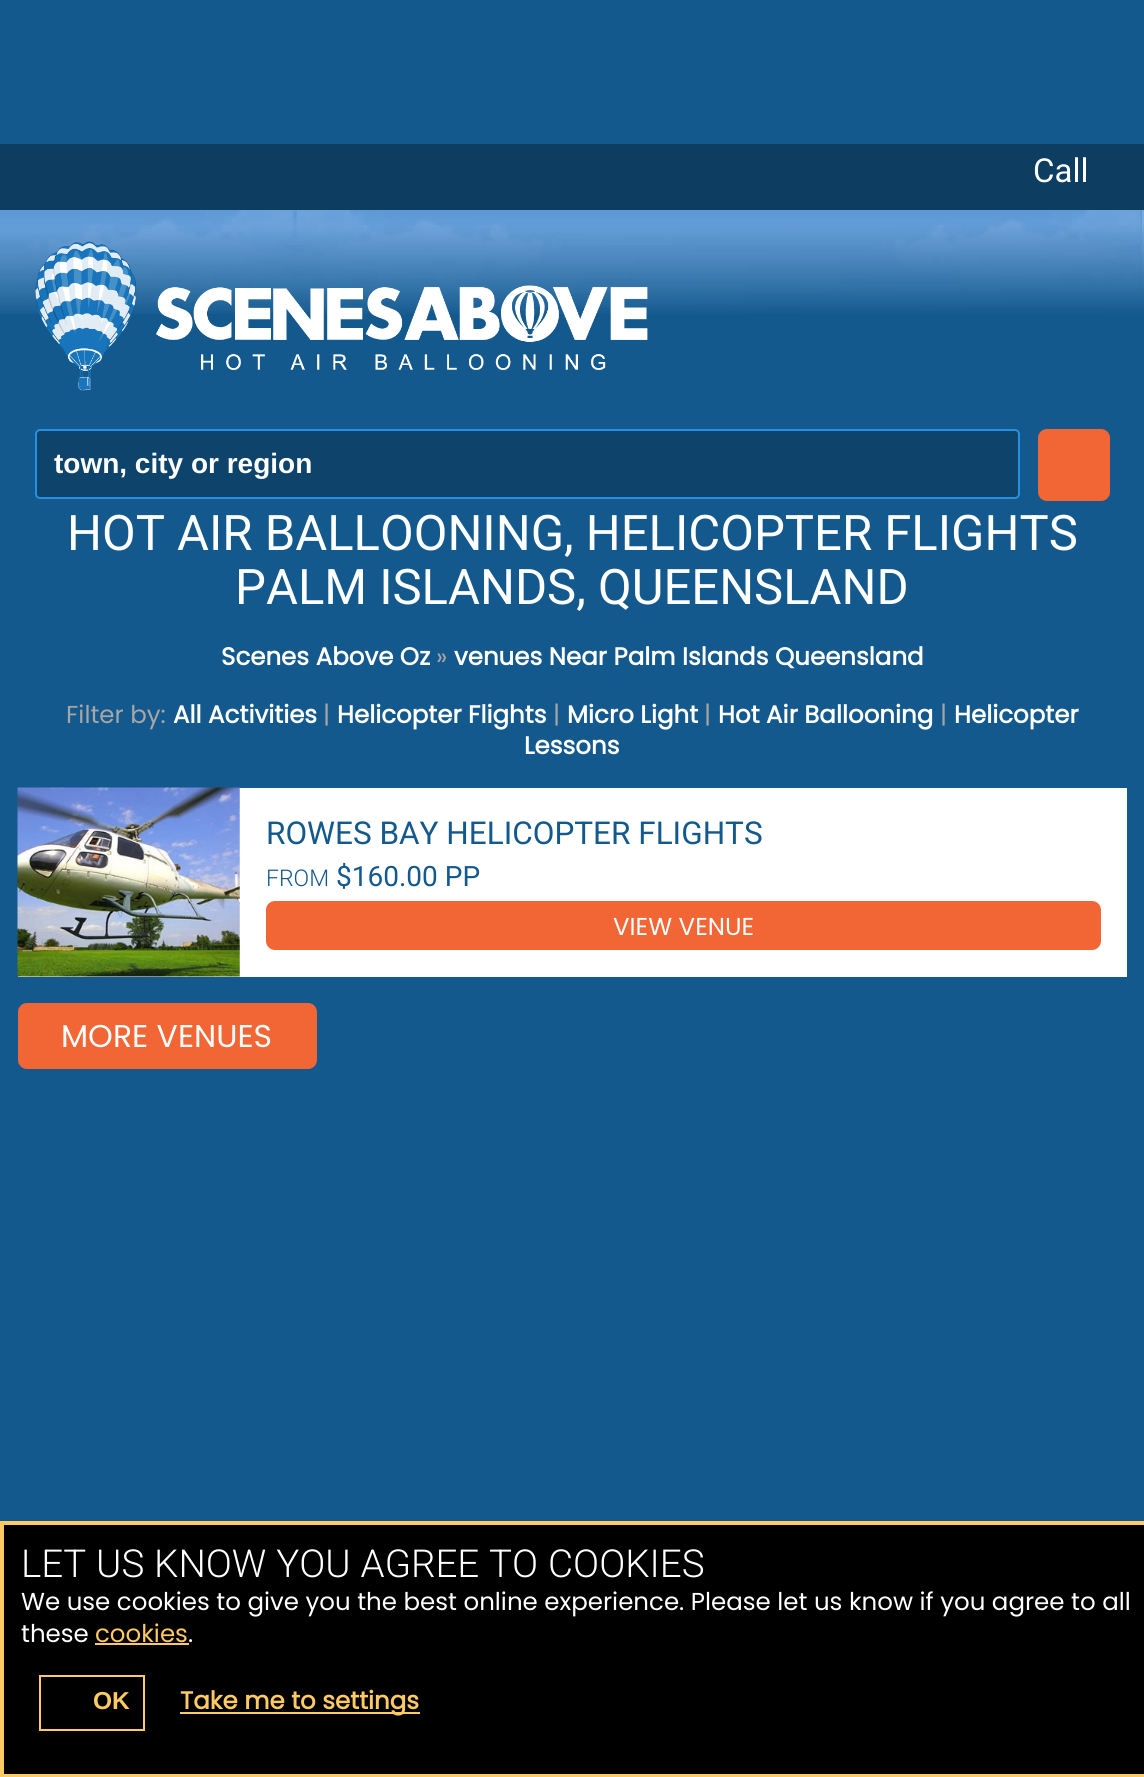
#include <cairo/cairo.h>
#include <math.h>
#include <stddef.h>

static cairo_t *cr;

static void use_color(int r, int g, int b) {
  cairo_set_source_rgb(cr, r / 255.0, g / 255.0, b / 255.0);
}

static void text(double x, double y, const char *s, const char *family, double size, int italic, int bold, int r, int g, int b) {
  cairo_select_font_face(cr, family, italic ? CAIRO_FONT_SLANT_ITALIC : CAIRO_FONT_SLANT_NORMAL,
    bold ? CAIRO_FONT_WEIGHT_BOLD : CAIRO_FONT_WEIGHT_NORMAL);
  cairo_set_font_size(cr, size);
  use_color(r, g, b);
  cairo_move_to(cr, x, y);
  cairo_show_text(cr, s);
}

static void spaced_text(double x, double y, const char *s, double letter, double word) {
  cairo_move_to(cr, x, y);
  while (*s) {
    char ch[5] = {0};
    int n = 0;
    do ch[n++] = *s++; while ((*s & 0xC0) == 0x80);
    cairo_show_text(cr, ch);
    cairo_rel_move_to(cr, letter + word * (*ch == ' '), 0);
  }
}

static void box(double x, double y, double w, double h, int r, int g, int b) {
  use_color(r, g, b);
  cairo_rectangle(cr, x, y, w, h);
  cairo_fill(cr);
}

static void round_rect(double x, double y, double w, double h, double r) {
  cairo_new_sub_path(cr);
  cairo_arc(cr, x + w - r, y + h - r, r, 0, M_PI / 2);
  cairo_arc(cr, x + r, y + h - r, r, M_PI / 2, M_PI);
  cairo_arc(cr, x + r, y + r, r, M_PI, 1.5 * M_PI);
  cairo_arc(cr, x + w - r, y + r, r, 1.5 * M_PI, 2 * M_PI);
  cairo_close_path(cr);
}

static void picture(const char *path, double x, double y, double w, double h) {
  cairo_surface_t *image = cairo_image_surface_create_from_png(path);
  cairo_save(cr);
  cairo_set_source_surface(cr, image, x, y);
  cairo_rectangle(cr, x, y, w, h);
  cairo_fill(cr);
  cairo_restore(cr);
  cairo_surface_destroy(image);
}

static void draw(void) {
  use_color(19, 89, 142);
  cairo_paint(cr);
  picture("img_01.png", 0, 210, 1144, 104);
  box(0, 144, 1144, 66, 13, 61, 97);
  picture("img_02.png", 35, 241, 613, 150);
  use_color(14, 67, 107);
  round_rect(36, 430, 983, 68, 4);
  cairo_fill_preserve(cr);
  use_color(37, 144, 226);
  cairo_stroke(cr);
  use_color(242, 102, 53);
  round_rect(1038, 429, 72, 72, 9);
  cairo_fill(cr);
  box(18, 788, 1109, 189, 255, 255, 255);
  picture("img_03.png", 17, 787, 223, 190);
  use_color(242, 102, 53);
  round_rect(266, 901, 835, 49, 9);
  cairo_fill(cr);
  round_rect(18, 1003, 299, 66, 9);
  cairo_fill(cr);
  use_color(0, 0, 0);
  cairo_rectangle(cr, 2, 1523, 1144, 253);
  cairo_fill_preserve(cr);
  use_color(254, 202, 100);
  cairo_set_line_width(cr, 4);
  cairo_stroke(cr);
  box(95, 1643, 94, 2, 254, 202, 100);
  cairo_rectangle(cr, 40, 1676, 104, 54);
  cairo_set_line_width(cr, 2);
  cairo_stroke(cr);
  box(180, 1712, 240, 2, 254, 202, 100);
  cairo_save(cr);
  round_rect(1033, 154, 94, 37, 18.5);
  cairo_clip(cr);
  text(1033, 182, "Call", "Roboto", 33, 0, 0, 255, 255, 255);
  cairo_restore(cr);
  text(54, 473, "town, city or region", "Liberation Sans", 28, 0, 1, 255, 255, 255);
  text(67, 550, "HOT AIR BALLOONING, HELICOPTER FLIGHTS", "Roboto", 49, 0, 0, 255, 255, 255);
  text(235, 604, "PALM ISLANDS, QUEENSLAND", "Roboto", 49, 0, 0, 255, 255, 255);
  text(221, 665, "Scenes Above Oz", "Poppins", 24.5, 0, 1, 255, 255, 255);
  text(436, 665, "»", "Poppins", 24.5, 0, 0, 166, 166, 166);
  text(454, 665, "venues Near Palm Islands Queensland", "Poppins", 24.5, 0, 1, 255, 255, 255);
  text(66, 723, "Filter by:", "Poppins", 24.5, 0, 0, 166, 166, 166);
  text(173, 723, "All Activities", "Poppins", 24.5, 0, 1, 255, 255, 255);
  text(323, 723, "|", "Poppins", 24.5, 0, 0, 166, 166, 166);
  text(337, 723, "Helicopter Flights", "Poppins", 24.5, 0, 1, 255, 255, 255);
  text(553, 723, "|", "Poppins", 24.5, 0, 0, 166, 166, 166);
  text(567, 723, "Micro Light", "Poppins", 24.5, 0, 1, 255, 255, 255);
  text(704, 723, "|", "Poppins", 24.5, 0, 0, 166, 166, 166);
  text(718, 723, "Hot Air Ballooning", "Poppins", 24.5, 0, 1, 255, 255, 255);
  text(940, 723, "|", "Poppins", 24.5, 0, 0, 166, 166, 166);
  text(954, 723, "Helicopter", "Poppins", 24.5, 0, 1, 255, 255, 255);
  text(524, 754, "Lessons", "Poppins", 24.5, 0, 1, 255, 255, 255);
  text(266, 844, "ROWES BAY HELICOPTER FLIGHTS", "Roboto", 31.5, 0, 0, 19, 89, 142);
  text(266, 886, "FROM", "Roboto Light", 23, 0, 0, 19, 89, 142);
  text(336, 886, "$160.00 PP", "Roboto", 28, 0, 0, 19, 89, 142);
  text(613, 935, "VIEW VENUE", "Poppins", 24.5, 0, 0, 255, 255, 255);
  text(61, 1047, "MORE VENUES", "Poppins", 31.5, 0, 0, 255, 255, 255);
  cairo_select_font_face(cr, "Roboto Light", CAIRO_FONT_SLANT_NORMAL, CAIRO_FONT_WEIGHT_NORMAL);
  cairo_set_font_size(cr, 38.5);
  spaced_text(21, 1577, "LET US KNOW YOU AGREE TO COOKIES", 0, 0.5);
  text(21, 1610, "We use cookies to give you the best online experience. Please let us know if you agree to all", "Poppins", 24.5, 0, 0, 255, 255, 255);
  text(21, 1642, "these", "Poppins", 24.5, 0, 0, 255, 255, 255);
  text(95, 1642, "cookies", "Poppins", 24.5, 0, 0, 254, 202, 100);
  text(188, 1642, ".", "Poppins", 24.5, 0, 0, 255, 255, 255);
  text(93, 1709, "OK", "Liberation Sans", 24.5, 0, 1, 254, 202, 100);
  text(180, 1709, "Take me to settings", "Poppins", 24.5, 0, 1, 254, 202, 100);
}

int main(void) {
  cairo_surface_t *surface = cairo_image_surface_create(CAIRO_FORMAT_RGB24, 1144, 1777);
  cr = cairo_create(surface);
  cairo_font_options_t *options = cairo_font_options_create();
  cairo_font_options_set_hint_metrics(options, CAIRO_HINT_METRICS_OFF);
  cairo_font_options_set_hint_style(options, CAIRO_HINT_STYLE_NONE);
  cairo_set_font_options(cr, options);
  cairo_set_miter_limit(cr, 4);
  draw();
  cairo_surface_write_to_png(surface, "out.png");
  cairo_font_options_destroy(options);
  cairo_destroy(cr);
  cairo_surface_destroy(surface);
  return 0;
}
